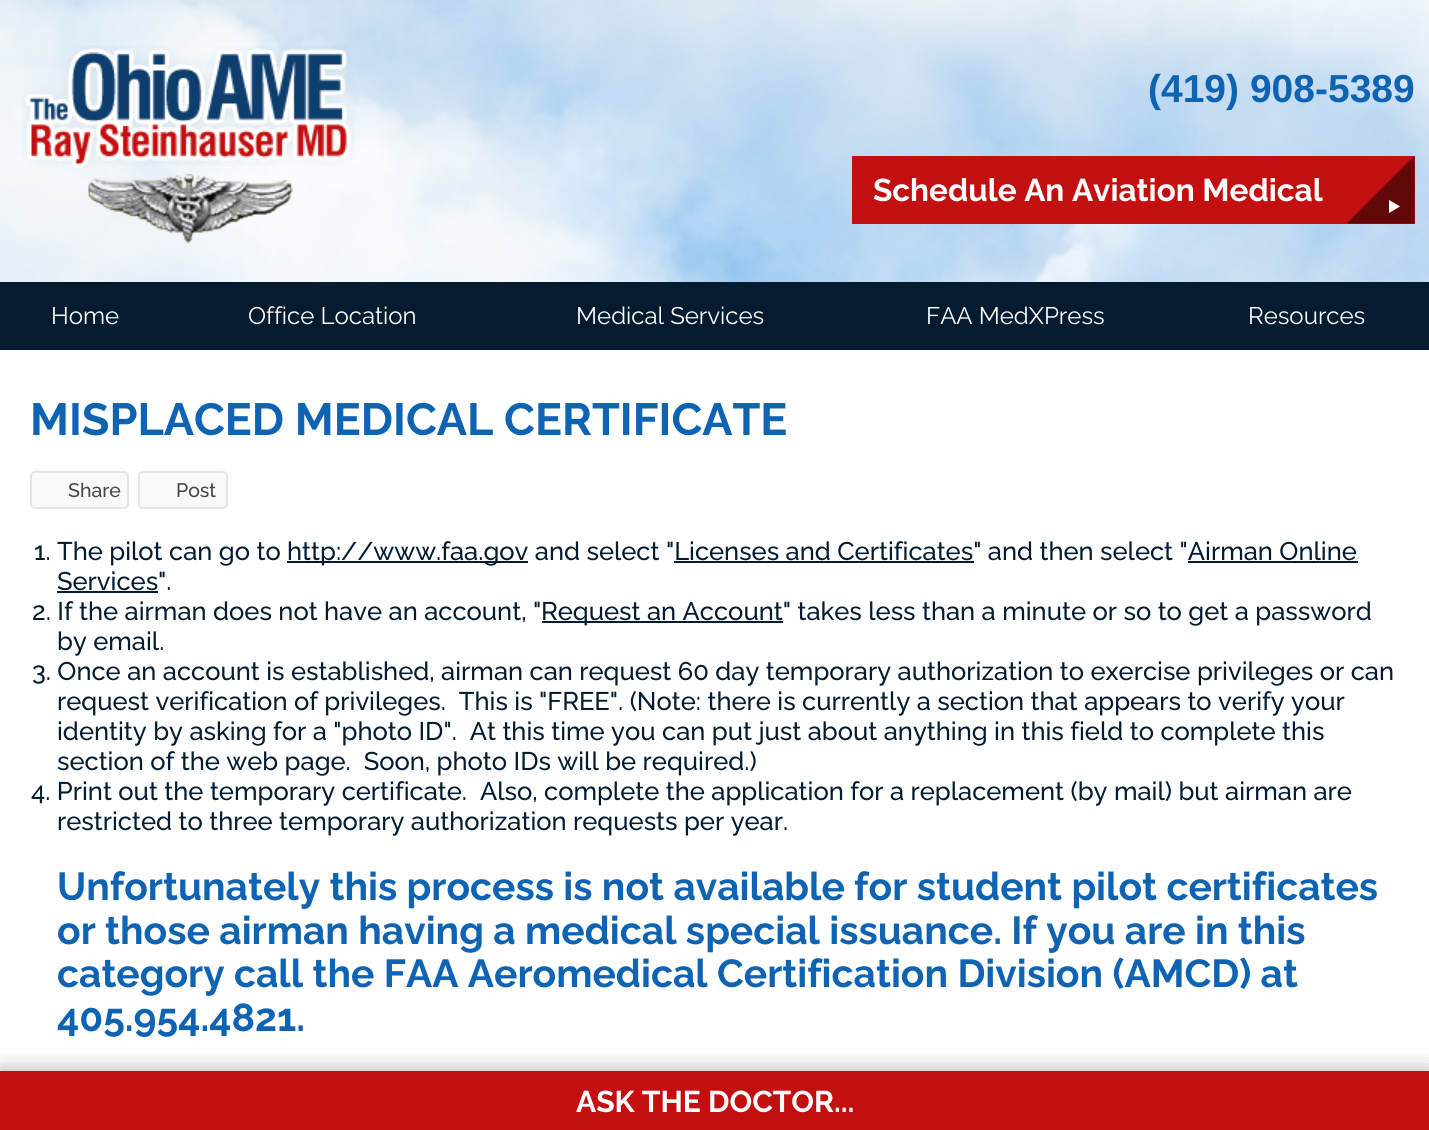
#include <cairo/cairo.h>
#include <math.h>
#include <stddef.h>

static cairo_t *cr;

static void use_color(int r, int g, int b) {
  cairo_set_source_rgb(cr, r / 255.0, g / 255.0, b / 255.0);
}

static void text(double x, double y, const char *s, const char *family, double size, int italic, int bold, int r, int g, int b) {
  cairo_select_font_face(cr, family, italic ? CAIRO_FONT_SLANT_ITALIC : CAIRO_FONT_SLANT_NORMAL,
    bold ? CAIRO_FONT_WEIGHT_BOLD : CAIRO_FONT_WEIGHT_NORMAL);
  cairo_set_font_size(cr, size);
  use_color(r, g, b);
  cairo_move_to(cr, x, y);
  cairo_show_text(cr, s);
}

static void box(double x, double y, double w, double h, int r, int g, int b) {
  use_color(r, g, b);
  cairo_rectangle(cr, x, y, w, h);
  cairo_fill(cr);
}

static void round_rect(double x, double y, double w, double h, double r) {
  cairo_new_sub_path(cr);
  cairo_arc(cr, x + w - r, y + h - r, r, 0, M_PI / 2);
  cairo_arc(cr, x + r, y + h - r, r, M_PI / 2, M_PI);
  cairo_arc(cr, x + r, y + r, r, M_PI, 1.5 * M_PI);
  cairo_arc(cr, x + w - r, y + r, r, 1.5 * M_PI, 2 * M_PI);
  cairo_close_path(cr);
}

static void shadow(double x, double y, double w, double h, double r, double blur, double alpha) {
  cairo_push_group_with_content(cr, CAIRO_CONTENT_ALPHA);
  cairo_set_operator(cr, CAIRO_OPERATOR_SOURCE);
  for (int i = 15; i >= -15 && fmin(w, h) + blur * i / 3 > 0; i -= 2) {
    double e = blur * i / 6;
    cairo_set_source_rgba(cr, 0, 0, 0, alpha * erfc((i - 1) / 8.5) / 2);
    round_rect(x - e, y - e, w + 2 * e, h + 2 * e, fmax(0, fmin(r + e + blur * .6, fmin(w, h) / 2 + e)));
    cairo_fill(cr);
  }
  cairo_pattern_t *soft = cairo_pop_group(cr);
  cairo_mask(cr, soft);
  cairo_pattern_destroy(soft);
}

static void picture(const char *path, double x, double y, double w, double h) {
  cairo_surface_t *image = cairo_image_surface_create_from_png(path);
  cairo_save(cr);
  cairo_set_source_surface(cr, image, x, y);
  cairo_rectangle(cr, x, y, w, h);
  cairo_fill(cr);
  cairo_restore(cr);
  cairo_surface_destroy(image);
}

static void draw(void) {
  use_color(255, 255, 255);
  cairo_paint(cr);
  picture("img_01.png", 0, 0, 1429, 282);
  picture("img_02.png", 22, 45, 333, 199);
  box(852, 156, 563, 68, 195, 15, 15);
  picture("img_03.png", 1347, 156, 68, 68);
  box(0, 282, 1429, 68, 4, 27, 48);
  use_color(249, 249, 249);
  round_rect(31, 472, 97, 36, 4);
  cairo_fill_preserve(cr);
  use_color(229, 229, 229);
  cairo_stroke(cr);
  use_color(249, 249, 249);
  round_rect(139, 472, 88, 36, 4);
  cairo_fill_preserve(cr);
  use_color(229, 229, 229);
  cairo_stroke(cr);
  box(287, 561, 241, 2, 4, 27, 48);
  box(674, 561, 300, 2, 4, 27, 48);
  box(1188, 561, 170, 2, 4, 27, 48);
  box(57, 591, 101, 2, 4, 27, 48);
  box(542, 621, 241, 2, 4, 27, 48);
  use_color(50, 50, 50);
  shadow(0, 1067, 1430, 60, 0, 9, 0.3);
  box(0, 1071, 1429, 59, 195, 15, 15);
  text(1148, 102, "(419) 908-5389", "Liberation Sans", 39, 0, 1, 15, 99, 179);
  text(873, 201, "Schedule An Aviation Medical", "Raleway", 31.5, 0, 1, 255, 255, 255);
  text(51, 324, "Home", "Raleway", 24, 0, 0, 255, 255, 255);
  text(248, 324, "Office Location", "Raleway", 24, 0, 0, 255, 255, 255);
  text(576, 324, "Medical Services", "Raleway", 24, 0, 0, 255, 255, 255);
  text(926, 324, "FAA MedXPress", "Raleway", 24, 0, 0, 255, 255, 255);
  text(1248, 324, "Resources", "Raleway", 24, 0, 0, 255, 255, 255);
  text(30, 435, "MISPLACED MEDICAL CERTIFICATE", "Raleway", 45, 0, 1, 15, 99, 179);
  text(68, 497, "Share", "Raleway Medium", 19.5, 0, 0, 68, 68, 68);
  text(176, 497, "Post", "Raleway Medium", 19.5, 0, 0, 68, 68, 68);
  text(34, 560, "1. The pilot can go to", "Raleway Medium", 25.5, 0, 0, 4, 27, 48);
  text(287, 560, "http://www.faa.gov and select \"Licenses and Certificates\" and then select \"Airman Online", "Raleway Medium", 25.5, 0, 0, 4, 27, 48);
  text(57, 590, "Services\".", "Raleway Medium", 25.5, 0, 0, 4, 27, 48);
  text(32, 620, "2. If the airman does not have an account, \"", "Raleway Medium", 25.5, 0, 0, 4, 27, 48);
  text(541, 620, "Request an Account\" takes less than a minute or so to get a password", "Raleway Medium", 25.5, 0, 0, 4, 27, 48);
  text(57, 650, "by email.", "Raleway Medium", 25.5, 0, 0, 4, 27, 48);
  text(32, 680, "3. Once an account is established, airman can request 60 day temporary authorization to exercise privileges or can", "Raleway Medium", 25.5, 0, 0, 4, 27, 48);
  text(57, 710, "request verification of privileges.  This is \"FREE\". (Note: there is currently a section that appears to verify your", "Raleway Medium", 25.5, 0, 0, 4, 27, 48);
  text(57, 740, "identity by asking for a \"photo ID\".  At this time you can put just about anything in this field to complete this", "Raleway Medium", 25.5, 0, 0, 4, 27, 48);
  text(57, 770, "section of the web page.  Soon, photo IDs will be required.)", "Raleway Medium", 25.5, 0, 0, 4, 27, 48);
  text(31, 800, "4. Print out the temporary certificate.  Also, complete the application for a replacement (by mail) but airman are", "Raleway Medium", 25.5, 0, 0, 4, 27, 48);
  text(57, 830, "restricted to three temporary authorization requests per year.", "Raleway Medium", 25.5, 0, 0, 4, 27, 48);
  text(57, 900, "Unfortunately this process is not available for student pilot certificates", "Raleway", 39, 0, 1, 15, 99, 179);
  text(57, 944, "or those airman having a medical special issuance. If you are in this", "Raleway", 39, 0, 1, 15, 99, 179);
  text(57, 987, "category call the FAA Aeromedical Certification Division (AMCD) at", "Raleway", 39, 0, 1, 15, 99, 179);
  text(57, 1031, "405.954.4821.", "Raleway", 39, 0, 1, 15, 99, 179);
  text(576, 1112, "ASK THE DOCTOR...", "Raleway", 30, 0, 1, 255, 255, 255);
}

int main(void) {
  cairo_surface_t *surface = cairo_image_surface_create(CAIRO_FORMAT_RGB24, 1429, 1130);
  cr = cairo_create(surface);
  cairo_font_options_t *options = cairo_font_options_create();
  cairo_font_options_set_hint_metrics(options, CAIRO_HINT_METRICS_OFF);
  cairo_font_options_set_hint_style(options, CAIRO_HINT_STYLE_NONE);
  cairo_set_font_options(cr, options);
  cairo_set_miter_limit(cr, 4);
  draw();
  cairo_surface_write_to_png(surface, "out.png");
  cairo_font_options_destroy(options);
  cairo_destroy(cr);
  cairo_surface_destroy(surface);
  return 0;
}
